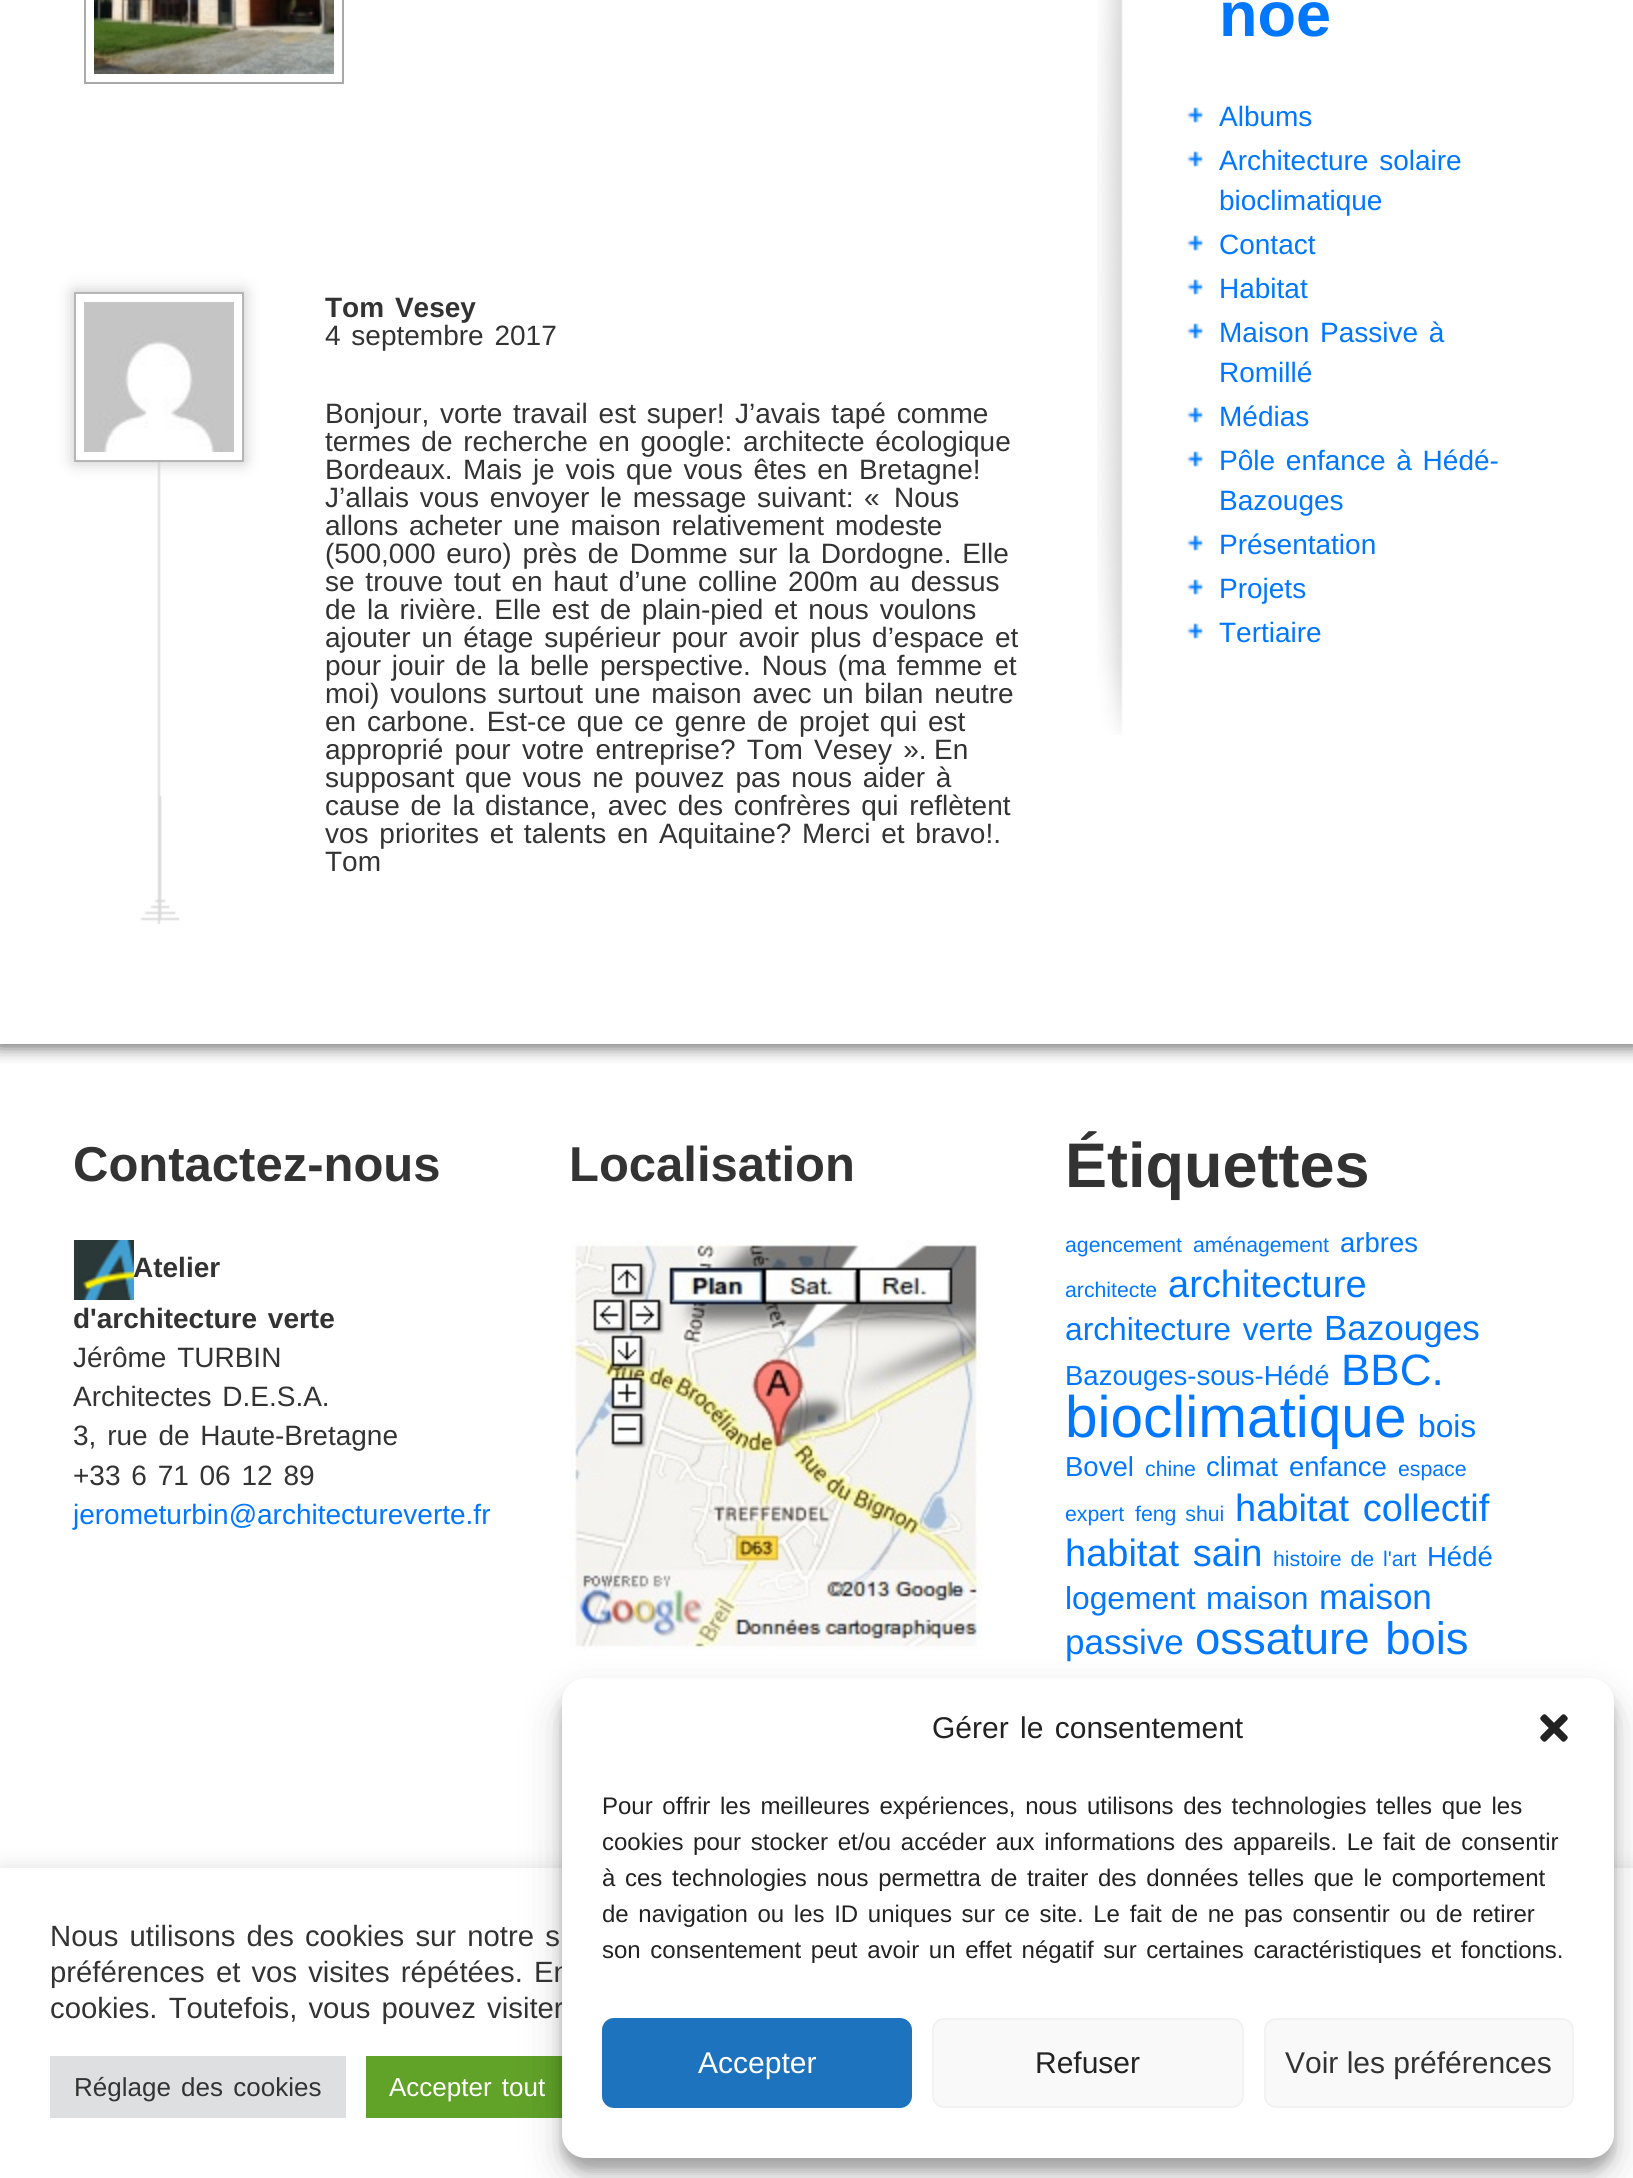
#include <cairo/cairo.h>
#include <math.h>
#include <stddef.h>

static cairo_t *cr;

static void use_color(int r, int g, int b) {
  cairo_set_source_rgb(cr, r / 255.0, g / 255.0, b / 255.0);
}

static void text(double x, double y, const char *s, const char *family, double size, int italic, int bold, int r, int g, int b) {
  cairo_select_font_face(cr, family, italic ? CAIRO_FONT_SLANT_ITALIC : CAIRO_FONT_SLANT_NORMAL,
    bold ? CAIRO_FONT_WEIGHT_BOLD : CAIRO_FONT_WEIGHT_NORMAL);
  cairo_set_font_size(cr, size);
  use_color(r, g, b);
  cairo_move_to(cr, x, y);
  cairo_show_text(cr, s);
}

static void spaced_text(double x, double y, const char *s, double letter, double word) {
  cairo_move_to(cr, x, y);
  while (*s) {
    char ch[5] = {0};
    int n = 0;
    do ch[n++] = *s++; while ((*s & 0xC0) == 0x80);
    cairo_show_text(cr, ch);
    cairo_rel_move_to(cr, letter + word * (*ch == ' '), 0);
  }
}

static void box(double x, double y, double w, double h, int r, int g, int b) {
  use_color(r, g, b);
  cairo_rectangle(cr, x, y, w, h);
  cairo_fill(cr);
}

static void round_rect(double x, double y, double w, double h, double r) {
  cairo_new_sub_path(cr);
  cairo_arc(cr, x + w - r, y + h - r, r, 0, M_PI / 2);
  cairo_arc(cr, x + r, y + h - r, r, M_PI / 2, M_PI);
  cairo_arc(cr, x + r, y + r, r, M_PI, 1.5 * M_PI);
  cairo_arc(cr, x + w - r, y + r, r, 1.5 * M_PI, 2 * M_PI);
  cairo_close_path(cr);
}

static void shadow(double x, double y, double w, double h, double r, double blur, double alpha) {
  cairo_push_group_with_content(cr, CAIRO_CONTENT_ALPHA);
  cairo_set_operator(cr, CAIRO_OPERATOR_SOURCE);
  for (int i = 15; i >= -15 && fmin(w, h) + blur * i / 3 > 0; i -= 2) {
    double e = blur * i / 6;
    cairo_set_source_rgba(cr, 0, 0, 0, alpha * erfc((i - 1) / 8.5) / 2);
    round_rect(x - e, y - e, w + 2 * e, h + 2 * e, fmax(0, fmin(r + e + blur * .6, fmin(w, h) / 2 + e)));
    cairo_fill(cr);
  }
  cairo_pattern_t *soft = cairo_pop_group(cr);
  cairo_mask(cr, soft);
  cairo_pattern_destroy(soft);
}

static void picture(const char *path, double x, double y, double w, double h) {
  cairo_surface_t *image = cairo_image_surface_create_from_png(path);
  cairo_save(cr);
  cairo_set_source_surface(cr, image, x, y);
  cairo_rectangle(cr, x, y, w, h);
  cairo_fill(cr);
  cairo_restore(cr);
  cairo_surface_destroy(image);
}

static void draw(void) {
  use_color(255, 255, 255);
  cairo_paint(cr);
  cairo_save(cr);
  cairo_rectangle(cr, 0, 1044, 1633, 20);
  cairo_clip(cr);
  use_color(85, 85, 85);
  shadow(-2, -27, 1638, 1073, 0, 9, 1);
  cairo_restore(cr);
  picture("img_01.png", 1097, 0, 26, 735);
  cairo_rectangle(cr, 85, -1, 258, 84);
  use_color(169, 169, 169);
  cairo_stroke(cr);
  picture("img_02.png", 94, 0, 240, 74);
  picture("img_03.png", 157, 462, 4, 462);
  picture("img_04.png", 140, 796, 40, 125);
  use_color(197, 197, 197);
  shadow(74, 292, 170, 170, 0, 8, 1);
  use_color(255, 255, 255);
  cairo_rectangle(cr, 75, 293, 168, 168);
  cairo_fill_preserve(cr);
  use_color(182, 182, 182);
  cairo_stroke(cr);
  picture("img_05.png", 84, 302, 150, 150);
  picture("img_06.png", 1187, 107, 16, 16);
  picture("img_06.png", 1187, 151, 16, 16);
  picture("img_06.png", 1187, 235, 16, 16);
  picture("img_06.png", 1187, 279, 16, 16);
  picture("img_06.png", 1187, 323, 16, 16);
  picture("img_06.png", 1187, 407, 16, 16);
  picture("img_06.png", 1187, 451, 16, 16);
  picture("img_06.png", 1187, 535, 16, 16);
  picture("img_06.png", 1187, 579, 16, 16);
  picture("img_06.png", 1187, 623, 16, 16);
  picture("img_07.png", 74, 1240, 60, 60);
  picture("img_08.png", 570, 1240, 412, 410);
  use_color(172, 171, 171);
  shadow(0, 1866, 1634, 310, 0, 10, 0.3);
  box(0, 1868, 1633, 310, 255, 255, 255);
  box(50, 2056, 296, 62, 222, 223, 224);
  box(366, 2056, 196, 62, 97, 162, 41);
  use_color(0, 0, 0);
  shadow(562, 1690, 1052, 480, 24, 6, 0.23);
  shadow(562, 1698, 1052, 480, 24, 20, 0.19);
  cairo_select_font_face(cr, "Liberation Sans", CAIRO_FONT_SLANT_NORMAL, CAIRO_FONT_WEIGHT_BOLD);
  cairo_set_font_size(cr, 28);
  use_color(51, 51, 51);
  spaced_text(325, 317, "Tom Vesey", 0, 3);
  cairo_select_font_face(cr, "Liberation Sans", CAIRO_FONT_SLANT_NORMAL, CAIRO_FONT_WEIGHT_NORMAL);
  spaced_text(325, 345, "4 septembre 2017", 0, 3);
  spaced_text(325, 423, "Bonjour, vorte travail est super!", 0, 3);
  spaced_text(735, 423, "J’avais tapé comme", 0, 3);
  spaced_text(325, 451, "termes de recherche en google: architecte écologique", 0, 3);
  text(325, 479, "Bordeaux.", "Liberation Sans", 28, 0, 0, 51, 51, 51);
  spaced_text(463, 479, "Mais je vois que vous êtes en Bretagne!", 0, 3);
  spaced_text(325, 507, "J’allais vous envoyer le message suivant:", 0, 3);
  text(864, 507, "«", "Liberation Sans", 28, 0, 0, 51, 51, 51);
  text(894, 507, "Nous", "Liberation Sans", 28, 0, 0, 51, 51, 51);
  spaced_text(325, 535, "allons acheter une maison relativement modeste", 0, 3);
  spaced_text(325, 563, "(500,000 euro) près de Domme sur la Dordogne. Elle", 0, 3);
  spaced_text(325, 591, "se trouve tout en haut d’une colline 200m au dessus", 0, 3);
  spaced_text(325, 619, "de la rivière. Elle est de plain-pied et nous voulons", 0, 3);
  spaced_text(325, 647, "ajouter un étage supérieur pour avoir plus d’espace et", 0, 3);
  spaced_text(325, 675, "pour jouir de la belle perspective. Nous (ma femme et", 0, 3);
  spaced_text(325, 703, "moi) voulons surtout une maison avec un bilan neutre", 0, 3);
  spaced_text(325, 731, "en carbone. Est-ce que ce genre de projet qui est", 0, 3);
  spaced_text(325, 759, "approprié pour votre entreprise? Tom Vesey ».", 0, 3.5);
  text(934, 759, "En", "Liberation Sans", 28, 0, 0, 51, 51, 51);
  spaced_text(325, 787, "supposant que vous ne pouvez pas nous aider à", 0, 3);
  spaced_text(325, 815, "cause de la distance, avec des confrères qui reflètent", 0, 3);
  spaced_text(325, 843, "vos priorites et talents en Aquitaine?", 0, 3);
  spaced_text(802, 843, "Merci et bravo!.", 0, 3);
  text(325, 871, "Tom", "Liberation Sans", 28, 0, 0, 51, 51, 51);
  text(1219, 36, "noe", "Liberation Sans", 63, 0, 1, 0, 119, 255);
  text(1219, 126, "Albums", "Liberation Sans", 28, 0, 0, 0, 119, 255);
  spaced_text(1219, 170, "Architecture solaire", 0, 3);
  text(1219, 210, "bioclimatique", "Liberation Sans", 28, 0, 0, 0, 119, 255);
  text(1219, 254, "Contact", "Liberation Sans", 28, 0, 0, 0, 119, 255);
  text(1219, 298, "Habitat", "Liberation Sans", 28, 0, 0, 0, 119, 255);
  spaced_text(1219, 342, "Maison Passive à", 0, 3);
  text(1219, 382, "Romillé", "Liberation Sans", 28, 0, 0, 0, 119, 255);
  text(1219, 426, "Médias", "Liberation Sans", 28, 0, 0, 0, 119, 255);
  spaced_text(1219, 470, "Pôle enfance à Hédé-", 0, 3);
  text(1219, 510, "Bazouges", "Liberation Sans", 28, 0, 0, 0, 119, 255);
  text(1219, 554, "Présentation", "Liberation Sans", 28, 0, 0, 0, 119, 255);
  text(1219, 598, "Projets", "Liberation Sans", 28, 0, 0, 0, 119, 255);
  text(1219, 642, "Tertiaire", "Liberation Sans", 28, 0, 0, 0, 119, 255);
  text(73, 1181, "Contactez-nous", "Liberation Sans", 49, 0, 1, 51, 51, 51);
  text(133, 1277, "Atelier", "Liberation Sans", 28, 0, 1, 51, 51, 51);
  spaced_text(73, 1328, "d'architecture verte", 0, 3);
  cairo_select_font_face(cr, "Liberation Sans", CAIRO_FONT_SLANT_NORMAL, CAIRO_FONT_WEIGHT_NORMAL);
  spaced_text(73, 1367, "Jérôme TURBIN", 0, 3);
  spaced_text(73, 1406, "Architectes D.E.S.A.", 0, 3);
  spaced_text(73, 1445, "3, rue de Haute-Bretagne", 0, 3);
  spaced_text(73, 1485, "+33 6 71 06 12 89", 0, 3);
  text(73, 1524, "jerometurbin@architectureverte.fr", "Liberation Sans", 28, 0, 0, 0, 119, 255);
  text(569, 1181, "Localisation", "Liberation Sans", 49, 0, 1, 51, 51, 51);
  text(1065, 1187, "Étiquettes", "Liberation Sans", 63, 0, 1, 51, 51, 51);
  text(1065, 1252, "agencement", "Liberation Sans", 21.25, 0, 0, 0, 119, 255);
  text(1193, 1252, "aménagement", "Liberation Sans", 21.25, 0, 0, 0, 119, 255);
  text(1340, 1252, "arbres", "Liberation Sans", 27.5, 0, 0, 0, 119, 255);
  text(1065, 1297, "architecte", "Liberation Sans", 21.25, 0, 0, 0, 119, 255);
  text(1168, 1297, "architecture", "Liberation Sans", 38, 0, 0, 0, 119, 255);
  cairo_set_font_size(cr, 31.75);
  spaced_text(1065, 1340, "architecture verte", 0, 3);
  text(1324, 1340, "Bazouges", "Liberation Sans", 35, 0, 0, 0, 119, 255);
  text(1065, 1385, "Bazouges-sous-Hédé", "Liberation Sans", 27.5, 0, 0, 0, 119, 255);
  text(1341, 1385, "BBC.", "Liberation Sans", 44, 0, 0, 0, 119, 255);
  text(1065, 1437, "bioclimatique", "Liberation Sans", 58.5, 0, 0, 0, 119, 255);
  text(1418, 1437, "bois", "Liberation Sans", 31.75, 0, 0, 0, 119, 255);
  text(1065, 1476, "Bovel", "Liberation Sans", 27.5, 0, 0, 0, 119, 255);
  text(1145, 1476, "chine", "Liberation Sans", 21.25, 0, 0, 0, 119, 255);
  text(1206, 1476, "climat", "Liberation Sans", 27.5, 0, 0, 0, 119, 255);
  text(1289, 1476, "enfance", "Liberation Sans", 27.5, 0, 0, 0, 119, 255);
  text(1398, 1476, "espace", "Liberation Sans", 21.25, 0, 0, 0, 119, 255);
  text(1065, 1521, "expert", "Liberation Sans", 21.25, 0, 0, 0, 119, 255);
  spaced_text(1135, 1521, "feng shui", 0, 3);
  cairo_set_font_size(cr, 38);
  spaced_text(1235, 1521, "habitat collectif", 0, 3);
  spaced_text(1065, 1566, "habitat sain", 0, 3);
  cairo_set_font_size(cr, 21.25);
  spaced_text(1273, 1566, "histoire de l'art", 0, 3);
  text(1427, 1566, "Hédé", "Liberation Sans", 27.5, 0, 0, 0, 119, 255);
  text(1065, 1609, "logement", "Liberation Sans", 31.75, 0, 0, 0, 119, 255);
  text(1206, 1609, "maison", "Liberation Sans", 31.75, 0, 0, 0, 119, 255);
  text(1319, 1609, "maison", "Liberation Sans", 35, 0, 0, 0, 119, 255);
  text(1065, 1654, "passive", "Liberation Sans", 35, 0, 0, 0, 119, 255);
  cairo_set_font_size(cr, 45.5);
  spaced_text(1195, 1654, "ossature bois", 0, 3);
  cairo_set_font_size(cr, 29.3);
  use_color(51, 51, 51);
  spaced_text(50, 1946, "Nous utilisons des cookies sur notre s", 0, 3);
  spaced_text(50, 1982, "préférences et vos visites répétées. En", 0, 3);
  spaced_text(50, 2018, "cookies. Toutefois, vous pouvez visiter", 0, 3);
  cairo_set_font_size(cr, 26);
  spaced_text(74, 2096, "Réglage des cookies", 0, 3);
  use_color(255, 255, 255);
  spaced_text(389, 2096, "Accepter tout", 0, 3);
  round_rect(562, 1678, 1052, 480, 24);
  cairo_fill(cr);
  cairo_set_font_size(cr, 30);
  use_color(34, 34, 34);
  spaced_text(932, 1738, "Gérer le consentement", 0, 3);
  picture("img_09.png", 1540, 1714, 28, 28);
  cairo_set_font_size(cr, 24);
  spaced_text(602, 1814, "Pour offrir les meilleures expériences, nous utilisons des technologies telles que les", 0, 3);
  spaced_text(602, 1850, "cookies pour stocker et/ou accéder aux informations des appareils. Le fait de consentir", 0, 3);
  spaced_text(602, 1886, "à ces technologies nous permettra de traiter des données telles que le comportement", 0, 3);
  spaced_text(602, 1922, "de navigation ou les ID uniques sur ce site. Le fait de ne pas consentir ou de retirer", 0, 3);
  spaced_text(602, 1958, "son consentement peut avoir un effet négatif sur certaines caractéristiques et fonctions.", 0, 3);
  use_color(30, 115, 190);
  round_rect(603, 2019, 308, 88, 11);
  cairo_fill_preserve(cr);
  cairo_stroke(cr);
  text(698, 2073, "Accepter", "Liberation Sans", 30, 0, 0, 255, 255, 255);
  use_color(249, 249, 249);
  round_rect(933, 2019, 310, 88, 11);
  cairo_fill_preserve(cr);
  use_color(242, 242, 242);
  cairo_stroke(cr);
  text(1035, 2073, "Refuser", "Liberation Sans", 30, 0, 0, 34, 34, 34);
  use_color(249, 249, 249);
  round_rect(1265, 2019, 308, 88, 11);
  cairo_fill_preserve(cr);
  use_color(242, 242, 242);
  cairo_stroke(cr);
  text(1285, 2073, "Voir les préférences", "Liberation Sans", 30, 0, 0, 51, 51, 51);
}

int main(void) {
  cairo_surface_t *surface = cairo_image_surface_create(CAIRO_FORMAT_RGB24, 1633, 2178);
  cr = cairo_create(surface);
  cairo_font_options_t *options = cairo_font_options_create();
  cairo_font_options_set_hint_metrics(options, CAIRO_HINT_METRICS_OFF);
  cairo_font_options_set_hint_style(options, CAIRO_HINT_STYLE_NONE);
  cairo_set_font_options(cr, options);
  cairo_set_miter_limit(cr, 4);
  draw();
  cairo_surface_write_to_png(surface, "out.png");
  cairo_font_options_destroy(options);
  cairo_destroy(cr);
  cairo_surface_destroy(surface);
  return 0;
}
